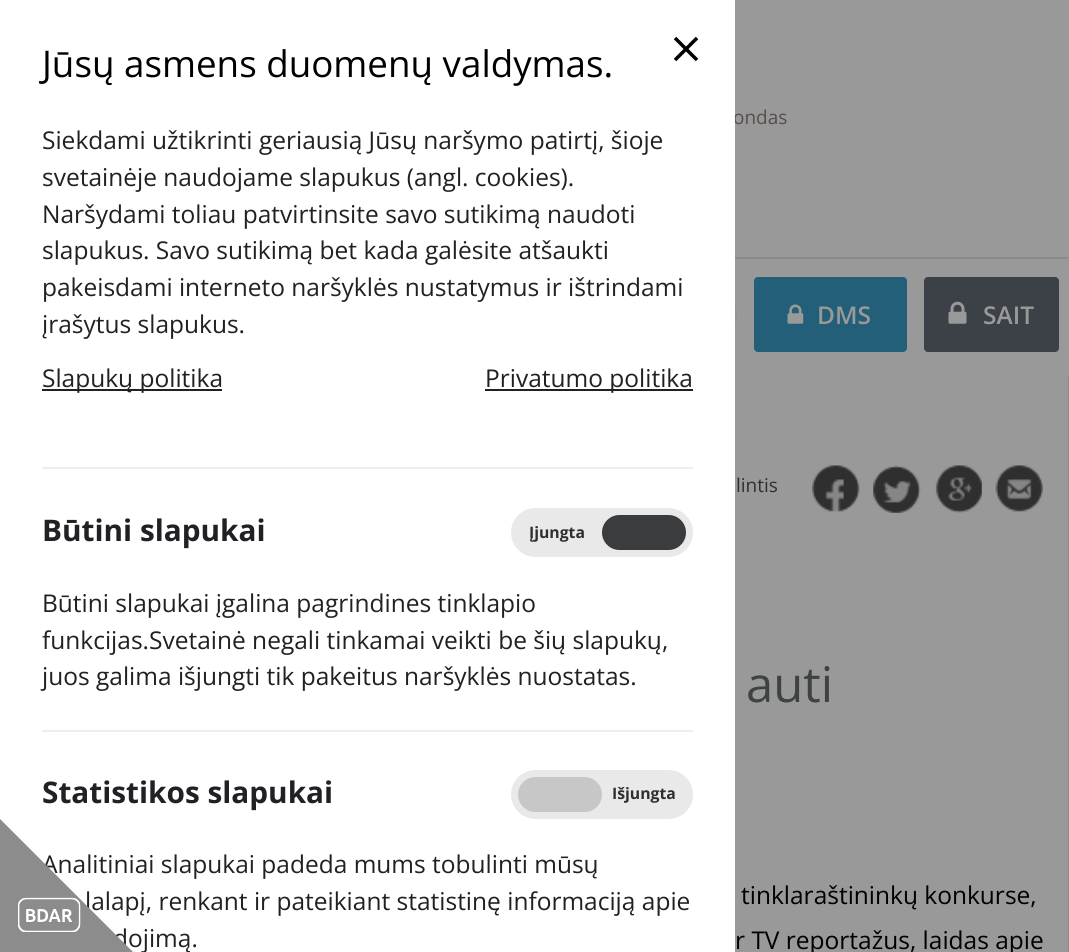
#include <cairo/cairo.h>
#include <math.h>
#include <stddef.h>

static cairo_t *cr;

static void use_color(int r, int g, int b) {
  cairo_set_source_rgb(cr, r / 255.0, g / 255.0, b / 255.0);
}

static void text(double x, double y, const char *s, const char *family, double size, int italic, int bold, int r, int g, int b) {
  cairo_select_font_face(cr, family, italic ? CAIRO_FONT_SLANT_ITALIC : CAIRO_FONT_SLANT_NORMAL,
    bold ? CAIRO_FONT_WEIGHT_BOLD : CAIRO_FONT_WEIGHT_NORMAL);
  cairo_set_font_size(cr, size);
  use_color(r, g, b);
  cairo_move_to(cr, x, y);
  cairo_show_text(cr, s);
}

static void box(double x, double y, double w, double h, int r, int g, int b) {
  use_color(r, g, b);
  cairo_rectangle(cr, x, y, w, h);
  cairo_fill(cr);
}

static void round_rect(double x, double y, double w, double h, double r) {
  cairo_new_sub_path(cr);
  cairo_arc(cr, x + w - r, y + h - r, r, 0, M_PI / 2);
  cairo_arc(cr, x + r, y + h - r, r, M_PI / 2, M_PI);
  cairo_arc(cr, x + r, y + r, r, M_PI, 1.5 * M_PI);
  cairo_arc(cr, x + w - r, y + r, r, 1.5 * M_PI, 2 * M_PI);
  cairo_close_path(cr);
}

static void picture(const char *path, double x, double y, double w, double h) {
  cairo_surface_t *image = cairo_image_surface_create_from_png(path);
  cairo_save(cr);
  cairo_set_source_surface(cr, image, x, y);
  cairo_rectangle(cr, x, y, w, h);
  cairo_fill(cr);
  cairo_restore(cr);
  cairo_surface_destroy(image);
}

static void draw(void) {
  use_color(153, 153, 153);
  cairo_paint(cr);
  box(735, 257, 333, 2, 139, 139, 139);
  use_color(148, 148, 148);
  round_rect(651, 277, 86, 75, 37.5);
  cairo_fill(cr);
  use_color(35, 95, 120);
  round_rect(754, 277, 153, 75, 4);
  cairo_fill(cr);
  picture("img_03.png", 787, 304, 17, 20);
  use_color(59, 65, 71);
  round_rect(924, 277, 135, 75, 4);
  cairo_fill(cr);
  picture("img_04.png", 948, 301, 19, 23);
  box(1068, 376, 1, 576, 139, 139, 139);
  picture("img_05.png", 812, 465, 48, 48);
  picture("img_06.png", 873, 465, 48, 48);
  picture("img_07.png", 935, 465, 47, 48);
  picture("img_08.png", 995, 465, 48, 47);
  text(733, 124, "ondas", "Open Sans", 19, 0, 0, 87, 77, 75);
  box(0, 0, 735, 952, 255, 255, 255);
  text(113, 947, "dojimą.", "Open Sans", 24.5, 0, 0, 32, 33, 36);
  text(85, 910, "lalapį, renkant ir pateikiant statistinę informaciją apie", "Open Sans", 24.5, 0, 0, 32, 33, 36);
  text(42, 873, "Analitiniai slapukai padeda mums tobulinti mūsų", "Open Sans", 24.5, 0, 0, 32, 33, 36);
  use_color(140, 140, 140);
  cairo_new_path(cr);
  cairo_move_to(cr, -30, 789);
  cairo_line_to(cr, 137, 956);
  cairo_line_to(cr, 32, 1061);
  cairo_line_to(cr, -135, 894);
  cairo_close_path(cr);
  cairo_fill(cr);
  picture("img_02.png", 18, 897, 63, 35);
  use_color(233, 233, 233);
  round_rect(514.5, 773.5, 175, 42, 21);
  cairo_fill_preserve(cr);
  cairo_set_line_width(cr, 7);
  cairo_stroke(cr);
  use_color(199, 199, 199);
  round_rect(518, 777, 84, 35, 17.5);
  cairo_fill(cr);
  use_color(233, 233, 233);
  round_rect(514.5, 511.5, 175, 42, 21);
  cairo_fill_preserve(cr);
  cairo_stroke(cr);
  use_color(59, 60, 62);
  round_rect(602, 515, 84, 35, 17.5);
  cairo_fill(cr);
  text(612, 799, "Išjungta", "Open Sans", 15.75, 0, 1, 47, 47, 47);
  text(42, 803, "Statistikos slapukai", "Open Sans", 29.75, 0, 1, 32, 33, 36);
  text(529, 538, "Įjungta", "Open Sans", 15.75, 0, 1, 47, 47, 47);
  box(42, 730, 651, 2, 238, 238, 238);
  text(42, 685, "juos galima išjungti tik pakeitus naršyklės nuostatas.", "Open Sans", 24.5, 0, 0, 32, 33, 36);
  text(42, 649, "funkcijas.Svetainė negali tinkamai veikti be šių slapukų,", "Open Sans", 24.5, 0, 0, 32, 33, 36);
  text(42, 612, "Būtini slapukai įgalina pagrindines tinklapio", "Open Sans", 24.5, 0, 0, 32, 33, 36);
  text(42, 541, "Būtini slapukai", "Open Sans", 29.75, 0, 1, 32, 33, 36);
  picture("img_01.png", 673, 36, 26, 26);
  box(42, 467, 651, 2, 238, 238, 238);
  box(485, 389, 208, 2, 32, 33, 36);
  text(485, 387, "Privatumo politika", "Open Sans", 24.5, 0, 0, 32, 33, 36);
  box(42, 389, 180, 2, 32, 33, 36);
  text(42, 387, "Slapukų politika", "Open Sans", 24.5, 0, 0, 32, 33, 36);
  text(42, 333, "įrašytus slapukus.", "Open Sans", 24.5, 0, 0, 32, 33, 36);
  text(42, 296, "pakeisdami interneto naršyklės nustatymus ir ištrindami", "Open Sans", 24.5, 0, 0, 32, 33, 36);
  text(42, 259, "slapukus. Savo sutikimą bet kada galėsite atšaukti", "Open Sans", 24.5, 0, 0, 32, 33, 36);
  text(42, 223, "Naršydami toliau patvirtinsite savo sutikimą naudoti", "Open Sans", 24.5, 0, 0, 32, 33, 36);
  text(42, 186, "svetainėje naudojame slapukus (angl. cookies).", "Open Sans", 24.5, 0, 0, 32, 33, 36);
  text(42, 149, "Siekdami užtikrinti geriausią Jūsų naršymo patirtį, šioje", "Open Sans", 24.5, 0, 0, 32, 33, 36);
  text(42, 77, "Jūsų asmens duomenų valdymas.", "Open Sans", 36.75, 0, 0, 0, 0, 0);
  text(817, 324, "DMS", "Open Sans SemiBold", 24.5, 0, 0, 153, 153, 153);
  text(983, 324, "SAIT", "Open Sans SemiBold", 24.5, 0, 0, 153, 153, 153);
  text(736, 492, "lintis", "Open Sans", 19, 0, 0, 47, 47, 47);
  text(746, 702, "auti", "Open Sans", 49, 0, 0, 62, 66, 67);
  text(741, 904, "tinklaraštininkų konkurse,", "Open Sans", 24.5, 0, 0, 0, 0, 0);
  text(735, 949, "r TV reportažus, laidas apie", "Open Sans", 24.5, 0, 0, 0, 0, 0);
}

int main(void) {
  cairo_surface_t *surface = cairo_image_surface_create(CAIRO_FORMAT_RGB24, 1069, 952);
  cr = cairo_create(surface);
  cairo_font_options_t *options = cairo_font_options_create();
  cairo_font_options_set_hint_metrics(options, CAIRO_HINT_METRICS_OFF);
  cairo_font_options_set_hint_style(options, CAIRO_HINT_STYLE_NONE);
  cairo_set_font_options(cr, options);
  cairo_set_miter_limit(cr, 4);
  draw();
  cairo_surface_write_to_png(surface, "out.png");
  cairo_font_options_destroy(options);
  cairo_destroy(cr);
  cairo_surface_destroy(surface);
  return 0;
}
